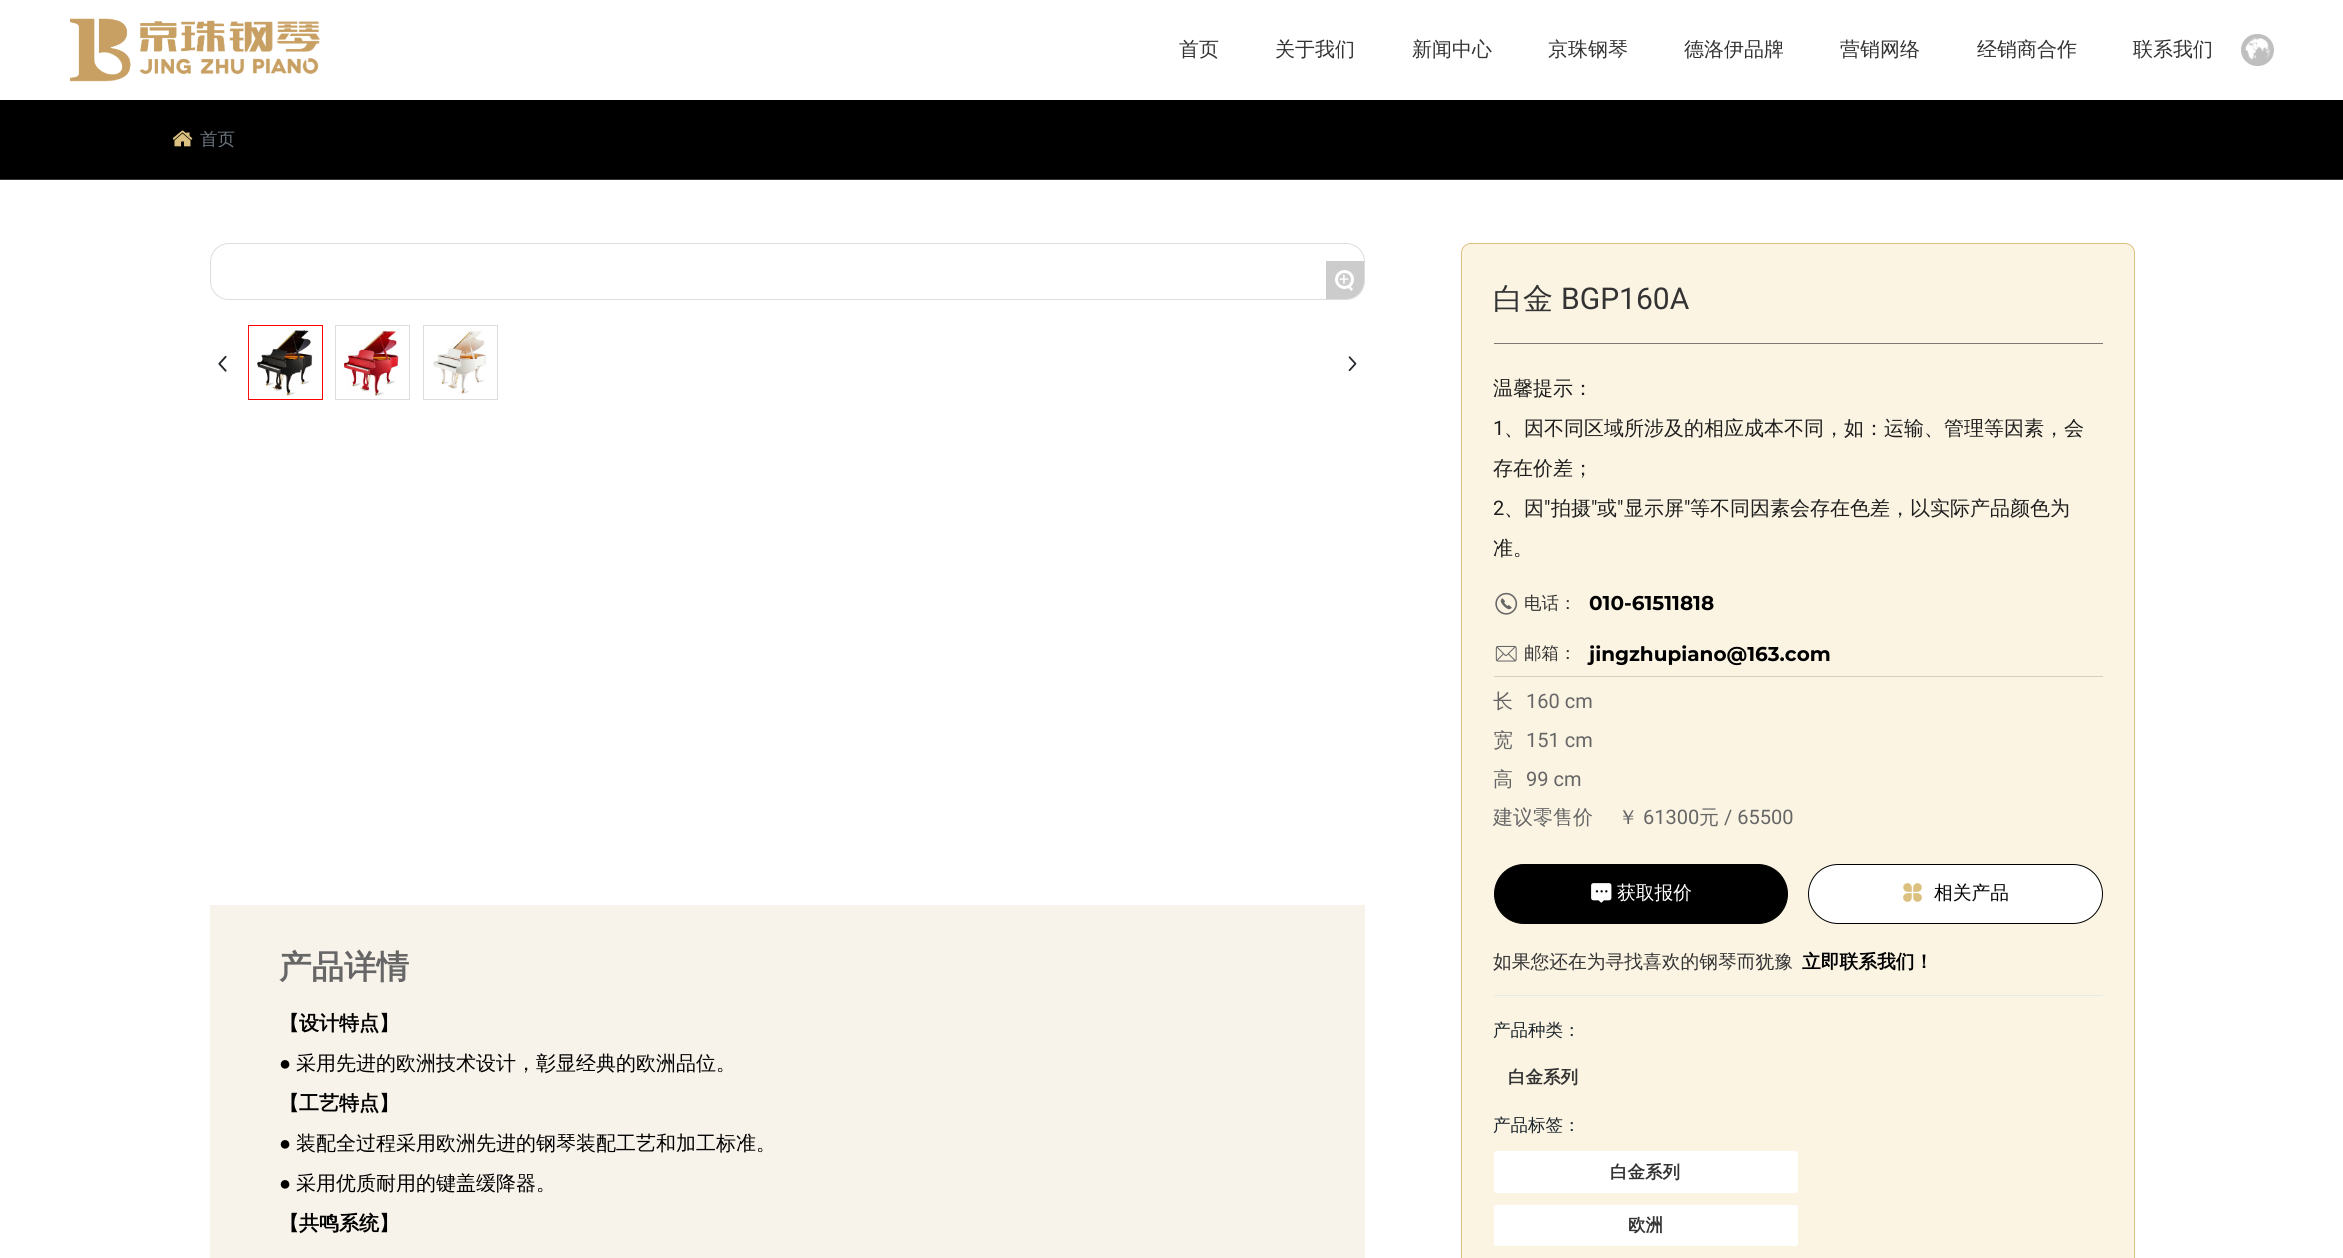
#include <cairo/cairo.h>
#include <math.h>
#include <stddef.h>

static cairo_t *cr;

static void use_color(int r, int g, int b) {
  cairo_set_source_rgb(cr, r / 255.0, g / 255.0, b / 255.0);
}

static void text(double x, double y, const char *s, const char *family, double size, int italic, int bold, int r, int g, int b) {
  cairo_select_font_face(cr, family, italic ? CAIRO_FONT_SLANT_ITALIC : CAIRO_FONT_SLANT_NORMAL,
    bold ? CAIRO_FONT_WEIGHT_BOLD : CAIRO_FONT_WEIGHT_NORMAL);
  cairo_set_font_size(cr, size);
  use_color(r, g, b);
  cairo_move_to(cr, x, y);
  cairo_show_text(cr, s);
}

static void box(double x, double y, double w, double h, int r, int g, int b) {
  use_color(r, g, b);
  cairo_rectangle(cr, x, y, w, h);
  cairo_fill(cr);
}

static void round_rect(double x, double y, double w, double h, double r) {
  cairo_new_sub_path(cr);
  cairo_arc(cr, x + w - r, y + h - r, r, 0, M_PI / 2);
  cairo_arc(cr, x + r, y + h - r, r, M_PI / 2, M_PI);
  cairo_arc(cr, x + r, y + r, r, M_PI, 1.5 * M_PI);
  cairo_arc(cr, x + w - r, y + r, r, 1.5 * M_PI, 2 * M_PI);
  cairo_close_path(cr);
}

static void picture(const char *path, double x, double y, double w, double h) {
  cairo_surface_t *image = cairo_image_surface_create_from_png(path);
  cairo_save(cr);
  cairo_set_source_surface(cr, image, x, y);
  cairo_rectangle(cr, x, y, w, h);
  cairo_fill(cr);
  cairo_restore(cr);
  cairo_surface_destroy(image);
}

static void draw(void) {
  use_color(255, 255, 255);
  cairo_paint(cr);
  picture("img_01.png", 70, 18, 250, 64);
  use_color(191, 191, 191);
  round_rect(2241, 34, 33, 32, 16);
  cairo_fill(cr);
  picture("img_02.png", 2245, 37, 25, 25);
  box(0, 100, 2343, 79, 0, 0, 0);
  box(0, 179, 2343, 1, 51, 51, 51);
  picture("img_03.png", 173, 130, 20, 17);
  round_rect(210.5, 243.5, 1154, 56, 18.5);
  use_color(221, 221, 221);
  cairo_set_line_width(cr, 1);
  cairo_stroke(cr);
  cairo_save(cr);
  round_rect(211, 244, 1153, 55, 18);
  cairo_clip(cr);
  use_color(204, 204, 204);
  cairo_new_path(cr);
  cairo_move_to(cr, 1326, 261);
  cairo_line_to(cr, 1364, 261);
  cairo_line_to(cr, 1364, 281);
  cairo_curve_to(cr, 1364, 291, 1356, 299, 1346, 299);
  cairo_line_to(cr, 1326, 299);
  cairo_close_path(cr);
  cairo_fill(cr);
  cairo_restore(cr);
  cairo_arc(cr, 1344.5, 279.5, 8, 0, 2 * M_PI);
  use_color(255, 255, 255);
  cairo_set_line_width(cr, 3);
  cairo_stroke(cr);
  cairo_new_path(cr);
  cairo_move_to(cr, 1348.5, 285);
  cairo_line_to(cr, 1353, 289);
  cairo_line_to(cr, 1351.5, 291);
  cairo_line_to(cr, 1347, 286.5);
  cairo_close_path(cr);
  cairo_fill(cr);
  cairo_rectangle(cr, 248.5, 325.5, 74, 74);
  use_color(255, 0, 0);
  cairo_set_line_width(cr, 1);
  cairo_stroke(cr);
  picture("img_04.png", 248, 326, 65, 73);
  cairo_rectangle(cr, 335.5, 325.5, 74, 74);
  use_color(221, 221, 221);
  cairo_stroke(cr);
  picture("img_05.png", 342, 329, 57, 67);
  cairo_rectangle(cr, 423.5, 325.5, 74, 74);
  cairo_stroke(cr);
  picture("img_06.png", 433, 329, 53, 67);
  picture("img_07.png", 218, 355, 9, 17);
  picture("img_08.png", 1348, 356, 9, 16);
  box(210, 905, 1155, 353, 248, 243, 234);
  use_color(251, 244, 227);
  round_rect(1461.5, 243.5, 673, 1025, 9.5);
  cairo_fill_preserve(cr);
  use_color(220, 192, 127);
  cairo_stroke(cr);
  box(1494, 343, 609, 1, 126, 122, 114);
  picture("img_09.png", 1495, 592, 23, 23);
  box(1494, 676, 609, 1, 213, 207, 193);
  picture("img_10.png", 1495, 645, 22, 17);
  use_color(0, 0, 0);
  round_rect(1494.5, 864.5, 293, 59, 29.5);
  cairo_fill_preserve(cr);
  cairo_stroke(cr);
  picture("img_11.png", 1591, 883, 21, 20);
  use_color(255, 255, 255);
  round_rect(1808.5, 864.5, 294, 59, 29.5);
  cairo_fill_preserve(cr);
  use_color(0, 0, 0);
  cairo_stroke(cr);
  picture("img_12.png", 1903, 883, 19, 19);
  box(1494, 995, 609, 1, 230, 231, 235);
  use_color(255, 255, 255);
  round_rect(1494, 1151, 304, 42, 2.5);
  cairo_fill(cr);
  round_rect(1494, 1205, 304, 41, 2.5);
  cairo_fill(cr);
  text(1179, 56, "首页", "WenQuanYi Zen Hei Medium", 20, 0, 0, 51, 51, 51);
  text(1275, 56, "关于我们", "WenQuanYi Zen Hei Medium", 20, 0, 0, 51, 51, 51);
  text(1412, 56, "新闻中心", "WenQuanYi Zen Hei Medium", 20, 0, 0, 51, 51, 51);
  text(1548, 56, "京珠钢琴", "WenQuanYi Zen Hei Medium", 20, 0, 0, 51, 51, 51);
  text(1684, 56, "德洛伊品牌", "WenQuanYi Zen Hei Medium", 20, 0, 0, 51, 51, 51);
  text(1840, 56, "营销网络", "WenQuanYi Zen Hei Medium", 20, 0, 0, 51, 51, 51);
  text(1977, 56, "经销商合作", "WenQuanYi Zen Hei Medium", 20, 0, 0, 51, 51, 51);
  text(2133, 56, "联系我们", "WenQuanYi Zen Hei Medium", 20, 0, 0, 51, 51, 51);
  text(200, 145, "首页", "WenQuanYi Zen Hei Medium", 17.5, 0, 0, 108, 117, 125);
  text(1339, 285, "+", "Roboto", 17.5, 0, 0, 255, 255, 255);
  text(279, 978, "产品详情", "WenQuanYi Zen Hei", 32.5, 0, 1, 102, 102, 102);
  text(279, 1030, "【设计特点】", "WenQuanYi Zen Hei", 20, 0, 1, 0, 0, 0);
  text(279, 1070, "●", "Liberation Sans", 20, 0, 0, 0, 0, 0);
  text(296, 1070, "采用先进的欧洲技术设计，彰显经典的欧洲品位。", "WenQuanYi Zen Hei Medium", 20, 0, 0, 0, 0, 0);
  text(279, 1110, "【工艺特点】", "WenQuanYi Zen Hei", 20, 0, 1, 0, 0, 0);
  text(279, 1150, "●", "Liberation Sans", 20, 0, 0, 0, 0, 0);
  text(296, 1150, "装配全过程采用欧洲先进的钢琴装配工艺和加工标准。", "WenQuanYi Zen Hei Medium", 20, 0, 0, 0, 0, 0);
  text(279, 1190, "●", "Liberation Sans", 20, 0, 0, 0, 0, 0);
  text(296, 1190, "采用优质耐用的键盖缓降器。", "WenQuanYi Zen Hei Medium", 20, 0, 0, 0, 0, 0);
  text(279, 1230, "【共鸣系统】", "WenQuanYi Zen Hei", 20, 0, 1, 0, 0, 0);
  text(1493, 309, "白金", "WenQuanYi Zen Hei Medium", 30, 0, 0, 51, 51, 51);
  text(1561, 309, "BGP160A", "Roboto", 30, 0, 0, 51, 51, 51);
  text(1493, 395, "温馨提示：", "WenQuanYi Zen Hei Medium", 20, 0, 0, 30, 30, 30);
  text(1493, 435, "1", "Roboto", 20, 0, 0, 30, 30, 30);
  text(1504, 435, "、因不同区域所涉及的相应成本不同，如：运输、管理等因素，会", "WenQuanYi Zen Hei Medium", 20, 0, 0, 30, 30, 30);
  text(1493, 475, "存在价差；", "WenQuanYi Zen Hei Medium", 20, 0, 0, 30, 30, 30);
  text(1493, 515, "2", "Roboto", 20, 0, 0, 30, 30, 30);
  text(1504, 515, "、因", "WenQuanYi Zen Hei Medium", 20, 0, 0, 30, 30, 30);
  text(1544, 515, "\"", "Roboto", 20, 0, 0, 30, 30, 30);
  text(1551, 515, "拍摄", "WenQuanYi Zen Hei Medium", 20, 0, 0, 30, 30, 30);
  text(1591, 515, "\"", "Roboto", 20, 0, 0, 30, 30, 30);
  text(1597, 515, "或", "WenQuanYi Zen Hei Medium", 20, 0, 0, 30, 30, 30);
  text(1617, 515, "\"", "Roboto", 20, 0, 0, 30, 30, 30);
  text(1624, 515, "显示屏", "WenQuanYi Zen Hei Medium", 20, 0, 0, 30, 30, 30);
  text(1684, 515, "\"", "Roboto", 20, 0, 0, 30, 30, 30);
  text(1690, 515, "等不同因素会存在色差，以实际产品颜色为", "WenQuanYi Zen Hei Medium", 20, 0, 0, 30, 30, 30);
  text(1493, 555, "准。", "WenQuanYi Zen Hei Medium", 20, 0, 0, 30, 30, 30);
  text(1524, 609, "电话：", "WenQuanYi Zen Hei Medium", 17.5, 0, 0, 51, 51, 51);
  text(1589, 610, "010-61511818", "Montserrat", 20, 0, 1, 0, 0, 0);
  text(1524, 659, "邮箱：", "WenQuanYi Zen Hei Medium", 17.5, 0, 0, 51, 51, 51);
  text(1589, 661, "jingzhupiano@163.com", "Montserrat", 20, 0, 1, 0, 0, 0);
  text(1493, 708, "长", "WenQuanYi Zen Hei Medium", 20, 0, 0, 102, 102, 102);
  text(1526, 708, "160 cm", "Roboto", 20, 0, 0, 102, 102, 102);
  text(1493, 747, "宽", "WenQuanYi Zen Hei Medium", 20, 0, 0, 102, 102, 102);
  text(1526, 747, "151 cm", "Roboto", 20, 0, 0, 102, 102, 102);
  text(1493, 786, "高", "WenQuanYi Zen Hei Medium", 20, 0, 0, 102, 102, 102);
  text(1526, 786, "99 cm", "Roboto", 20, 0, 0, 102, 102, 102);
  text(1493, 824, "建议零售价", "WenQuanYi Zen Hei Medium", 20, 0, 0, 102, 102, 102);
  text(1618, 824, "￥", "WenQuanYi Zen Hei Medium", 20, 0, 0, 102, 102, 102);
  text(1643, 824, "61300", "Roboto", 20, 0, 0, 102, 102, 102);
  text(1699, 824, "元", "WenQuanYi Zen Hei Medium", 20, 0, 0, 102, 102, 102);
  text(1724, 824, "/ 65500", "Roboto", 20, 0, 0, 102, 102, 102);
  text(1617, 899, "获取报价", "WenQuanYi Zen Hei Medium", 18.75, 0, 0, 255, 255, 255);
  text(1934, 899, "相关产品", "WenQuanYi Zen Hei Medium", 18.75, 0, 0, 0, 0, 0);
  text(1493, 968, "如果您还在为寻找喜欢的钢琴而犹豫", "WenQuanYi Zen Hei Medium", 18.75, 0, 0, 51, 51, 51);
  text(1802, 968, "立即联系我们！", "WenQuanYi Zen Hei", 18.75, 0, 1, 0, 0, 0);
  text(1493, 1036, "产品种类：", "WenQuanYi Zen Hei Medium", 17.5, 0, 0, 27, 36, 43);
  text(1508, 1083, "白金系列", "WenQuanYi Zen Hei", 17.5, 0, 1, 51, 51, 51);
  text(1493, 1131, "产品标签：", "WenQuanYi Zen Hei Medium", 17.5, 0, 0, 27, 36, 43);
  text(1610, 1178, "白金系列", "WenQuanYi Zen Hei", 17.5, 0, 1, 51, 51, 51);
  text(1628, 1231, "欧洲", "WenQuanYi Zen Hei", 17.5, 0, 1, 51, 51, 51);
}

int main(void) {
  cairo_surface_t *surface = cairo_image_surface_create(CAIRO_FORMAT_RGB24, 2343, 1258);
  cr = cairo_create(surface);
  cairo_font_options_t *options = cairo_font_options_create();
  cairo_font_options_set_hint_metrics(options, CAIRO_HINT_METRICS_OFF);
  cairo_font_options_set_hint_style(options, CAIRO_HINT_STYLE_NONE);
  cairo_set_font_options(cr, options);
  cairo_set_miter_limit(cr, 4);
  draw();
  cairo_surface_write_to_png(surface, "out.png");
  cairo_font_options_destroy(options);
  cairo_destroy(cr);
  cairo_surface_destroy(surface);
  return 0;
}
